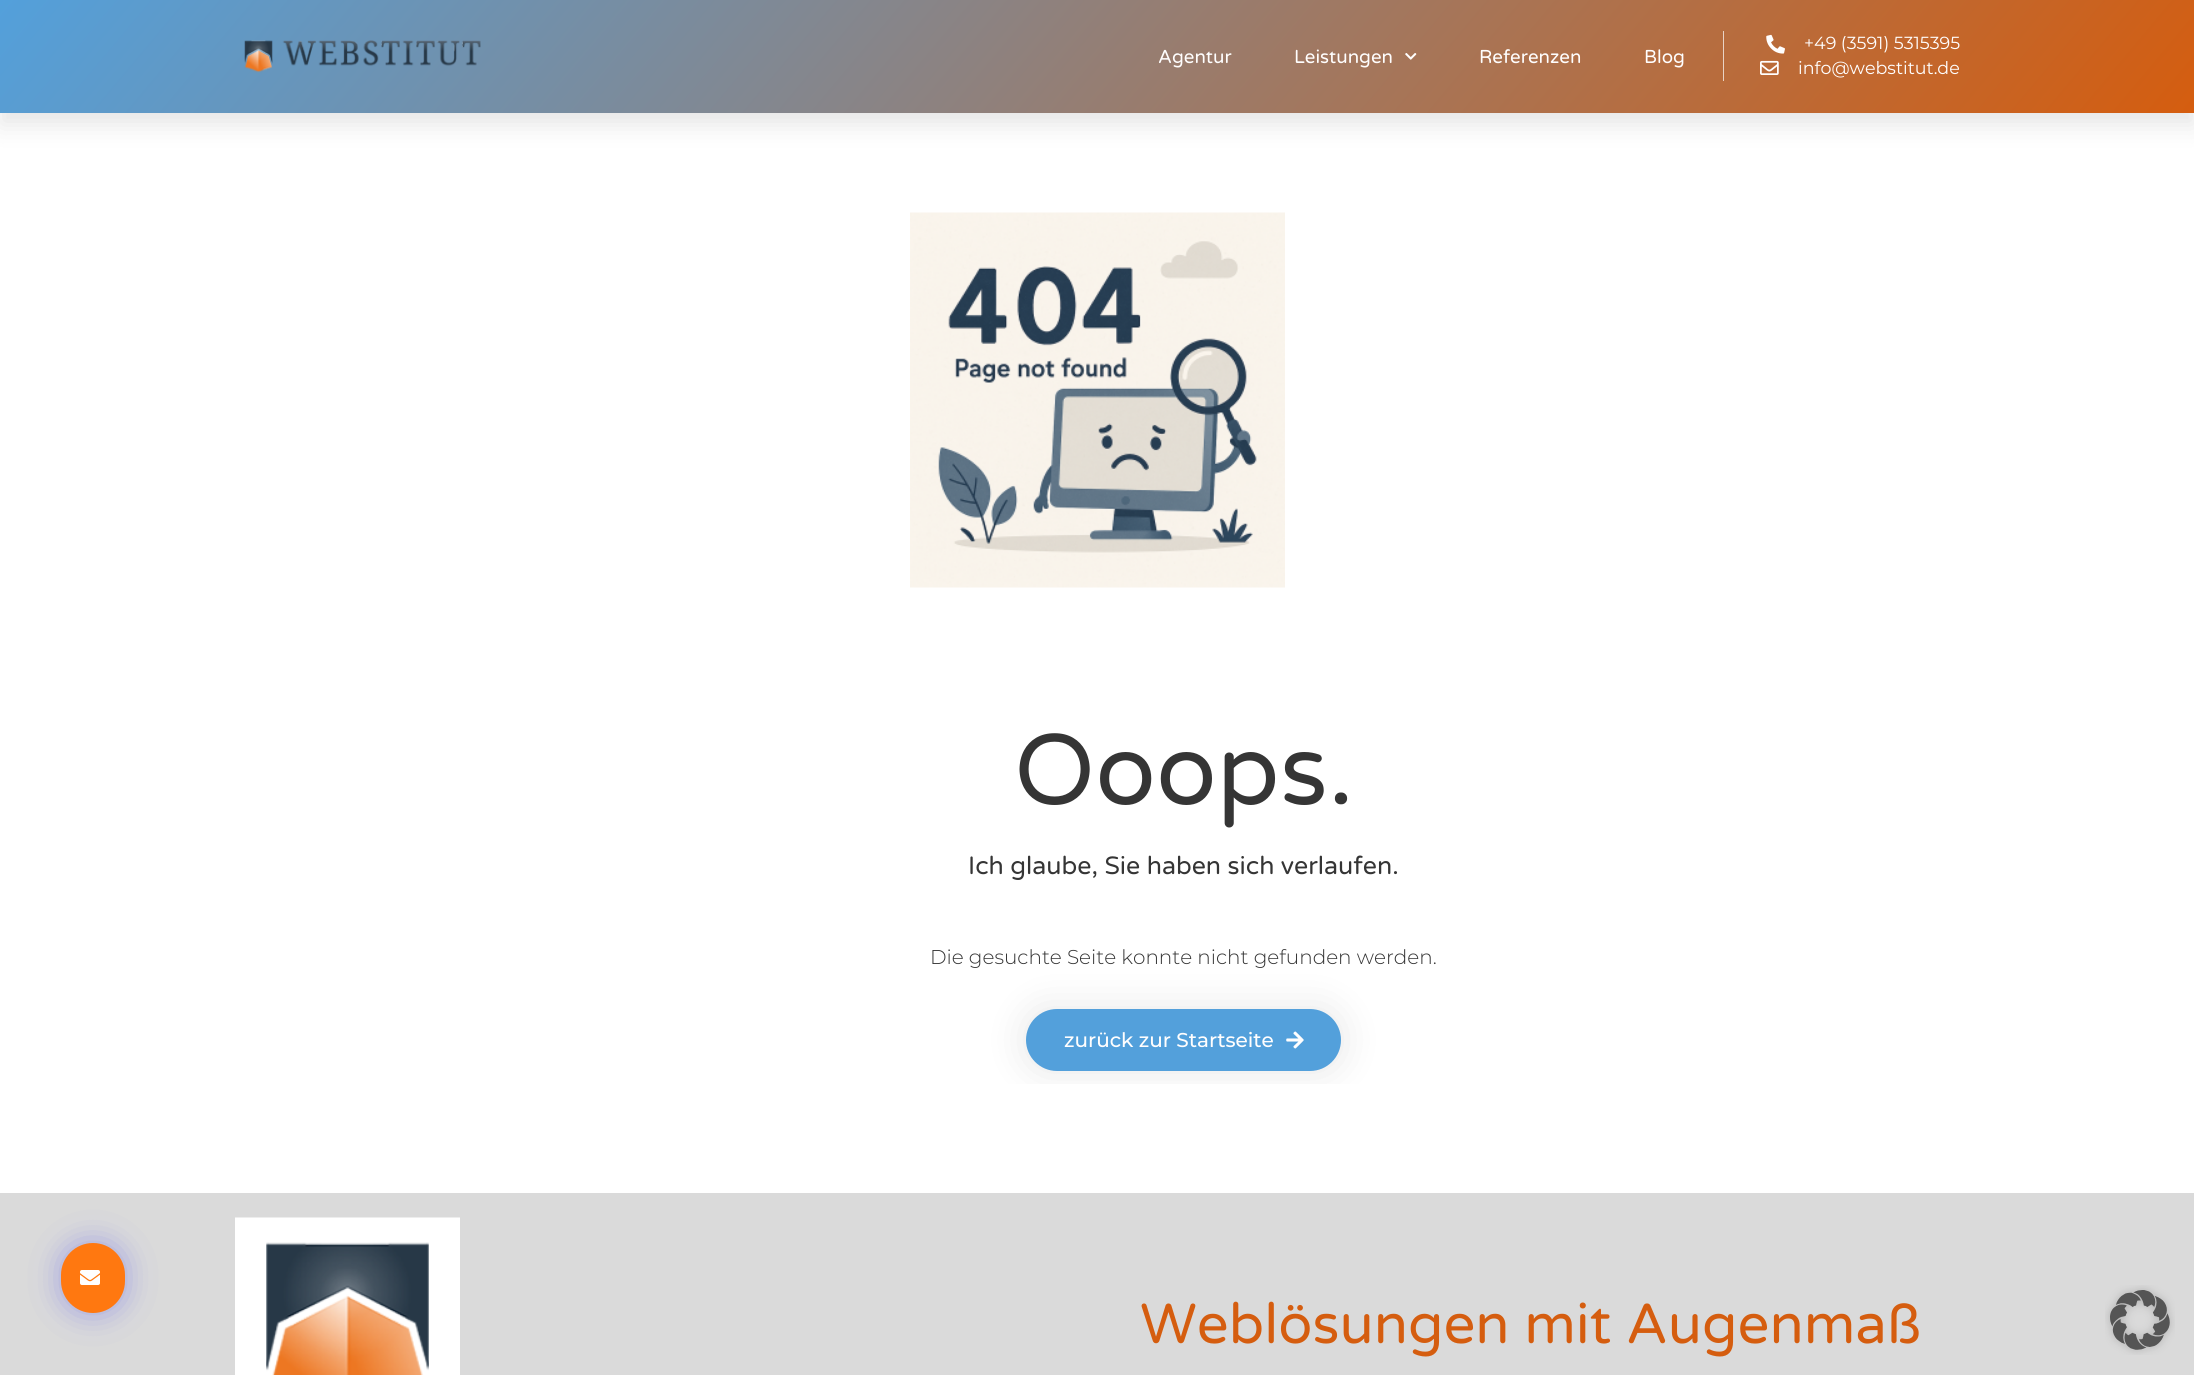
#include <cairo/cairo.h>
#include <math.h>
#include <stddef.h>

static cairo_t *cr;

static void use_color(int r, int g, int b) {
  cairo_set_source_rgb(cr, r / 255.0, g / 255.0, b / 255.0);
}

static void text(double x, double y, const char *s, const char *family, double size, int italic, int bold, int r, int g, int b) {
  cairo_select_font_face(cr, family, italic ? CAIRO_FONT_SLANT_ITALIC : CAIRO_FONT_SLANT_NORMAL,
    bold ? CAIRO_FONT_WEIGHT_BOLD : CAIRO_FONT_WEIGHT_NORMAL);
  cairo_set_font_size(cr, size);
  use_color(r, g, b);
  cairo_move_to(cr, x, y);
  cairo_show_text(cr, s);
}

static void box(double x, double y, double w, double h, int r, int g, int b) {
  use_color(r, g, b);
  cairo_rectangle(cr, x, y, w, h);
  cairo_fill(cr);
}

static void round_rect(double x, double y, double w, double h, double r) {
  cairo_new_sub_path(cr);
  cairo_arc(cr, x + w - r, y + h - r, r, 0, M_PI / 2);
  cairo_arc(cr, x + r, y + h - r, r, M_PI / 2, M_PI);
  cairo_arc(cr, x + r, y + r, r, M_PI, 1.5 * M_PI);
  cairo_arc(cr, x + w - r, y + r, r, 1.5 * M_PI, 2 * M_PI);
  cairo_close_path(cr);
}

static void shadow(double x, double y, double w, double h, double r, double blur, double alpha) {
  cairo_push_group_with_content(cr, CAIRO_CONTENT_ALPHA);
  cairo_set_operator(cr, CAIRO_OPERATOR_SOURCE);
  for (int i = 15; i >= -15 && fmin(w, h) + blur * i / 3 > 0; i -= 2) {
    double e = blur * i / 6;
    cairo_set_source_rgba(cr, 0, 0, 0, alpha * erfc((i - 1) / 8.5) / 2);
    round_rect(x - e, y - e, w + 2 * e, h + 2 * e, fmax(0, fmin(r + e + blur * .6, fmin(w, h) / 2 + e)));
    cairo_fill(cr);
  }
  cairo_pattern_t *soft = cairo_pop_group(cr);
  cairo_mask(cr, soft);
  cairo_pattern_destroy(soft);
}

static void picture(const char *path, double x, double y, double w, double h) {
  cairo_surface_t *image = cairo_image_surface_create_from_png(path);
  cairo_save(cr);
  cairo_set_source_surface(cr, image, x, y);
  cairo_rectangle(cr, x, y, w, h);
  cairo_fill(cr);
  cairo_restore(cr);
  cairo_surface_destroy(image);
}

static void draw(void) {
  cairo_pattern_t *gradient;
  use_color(255, 255, 255);
  cairo_paint(cr);
  use_color(0, 0, 0);
  shadow(0, 13, 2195, 112, 0, 12.5, 0.1);
  gradient = cairo_pattern_create_linear(426, -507, 1769, 620);
  cairo_pattern_add_color_stop_rgba(gradient, 0, 0.325, 0.627, 0.859, 1);
  cairo_pattern_add_color_stop_rgba(gradient, 1, 0.835, 0.365, 0.059, 1);
  cairo_set_source(cr, gradient);
  cairo_pattern_destroy(gradient);
  cairo_rectangle(cr, 0, 0, 2194, 113);
  cairo_fill(cr);
  gradient = cairo_pattern_create_linear(426, -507, 1769, 620);
  cairo_pattern_add_color_stop_rgba(gradient, 0, 0.796, 0.89, 0.957, 1);
  cairo_pattern_add_color_stop_rgba(gradient, 1, 0.949, 0.808, 0.718, 1);
  cairo_set_source(cr, gradient);
  cairo_pattern_destroy(gradient);
  cairo_rectangle(cr, 1723, 31, 1, 50);
  cairo_fill(cr);
  picture("img_01.png", 244, 40, 237, 33);
  picture("img_02.png", 1405, 53, 12, 7);
  picture("img_03.png", 1766, 34, 19, 20);
  picture("img_04.png", 1760, 60, 19, 15);
  picture("img_05.png", 910, 212, 375, 376);
  cairo_save(cr);
  cairo_rectangle(cr, 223, 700, 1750, 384);
  cairo_clip(cr);
  use_color(0, 0, 0);
  shadow(1026, 1009, 315, 62, 31, 19, 0.1);
  cairo_restore(cr);
  use_color(83, 160, 219);
  round_rect(1026, 1009, 315, 62, 31);
  cairo_fill(cr);
  picture("img_06.png", 1286, 1031, 18, 18);
  box(0, 1193, 2194, 182, 218, 218, 218);
  use_color(53, 56, 240);
  shadow(61, 1243, 64, 70, 32, 15.5, 0.35);
  use_color(255, 120, 16);
  round_rect(61, 1243, 64, 70, 32);
  cairo_fill(cr);
  picture("img_07.png", 80, 1270, 20, 15);
  picture("img_08.png", 235, 1217, 225, 158);
  picture("img_09.png", 2105, 1285, 70, 70);
  text(1158, 63, "Agentur", "Varela Round", 18.75, 0, 0, 255, 254, 254);
  text(1294, 63, "Leistungen", "Varela Round", 18.75, 0, 0, 255, 254, 254);
  text(1479, 63, "Referenzen", "Varela Round", 18.75, 0, 0, 255, 254, 254);
  text(1644, 63, "Blog", "Varela Round", 18.75, 0, 0, 255, 254, 254);
  text(1804, 49, "+49 (3591) 5315395", "Montserrat", 17.5, 0, 0, 255, 254, 254);
  text(1798, 74, "info@webstitut.de", "Montserrat", 17.5, 0, 0, 255, 254, 254);
  text(1014, 804, "Ooops.", "Varela Round", 100, 0, 0, 53, 53, 53);
  text(968, 874, "Ich glaube, Sie haben sich verlaufen.", "Varela Round", 25, 0, 0, 53, 53, 53);
  text(930, 964, "Die gesuchte Seite konnte nicht gefunden werden.", "Montserrat Light", 20, 0, 0, 53, 53, 53);
  text(1064, 1047, "zurück zur Startseite", "Montserrat Medium", 20, 0, 0, 255, 254, 254);
  text(1140, 1343, "Weblösungen mit Augenmaß", "Varela Round", 56.25, 0, 0, 213, 93, 15);
}

int main(void) {
  cairo_surface_t *surface = cairo_image_surface_create(CAIRO_FORMAT_RGB24, 2194, 1375);
  cr = cairo_create(surface);
  cairo_font_options_t *options = cairo_font_options_create();
  cairo_font_options_set_hint_metrics(options, CAIRO_HINT_METRICS_OFF);
  cairo_font_options_set_hint_style(options, CAIRO_HINT_STYLE_NONE);
  cairo_set_font_options(cr, options);
  cairo_set_miter_limit(cr, 4);
  draw();
  cairo_surface_write_to_png(surface, "out.png");
  cairo_font_options_destroy(options);
  cairo_destroy(cr);
  cairo_surface_destroy(surface);
  return 0;
}
